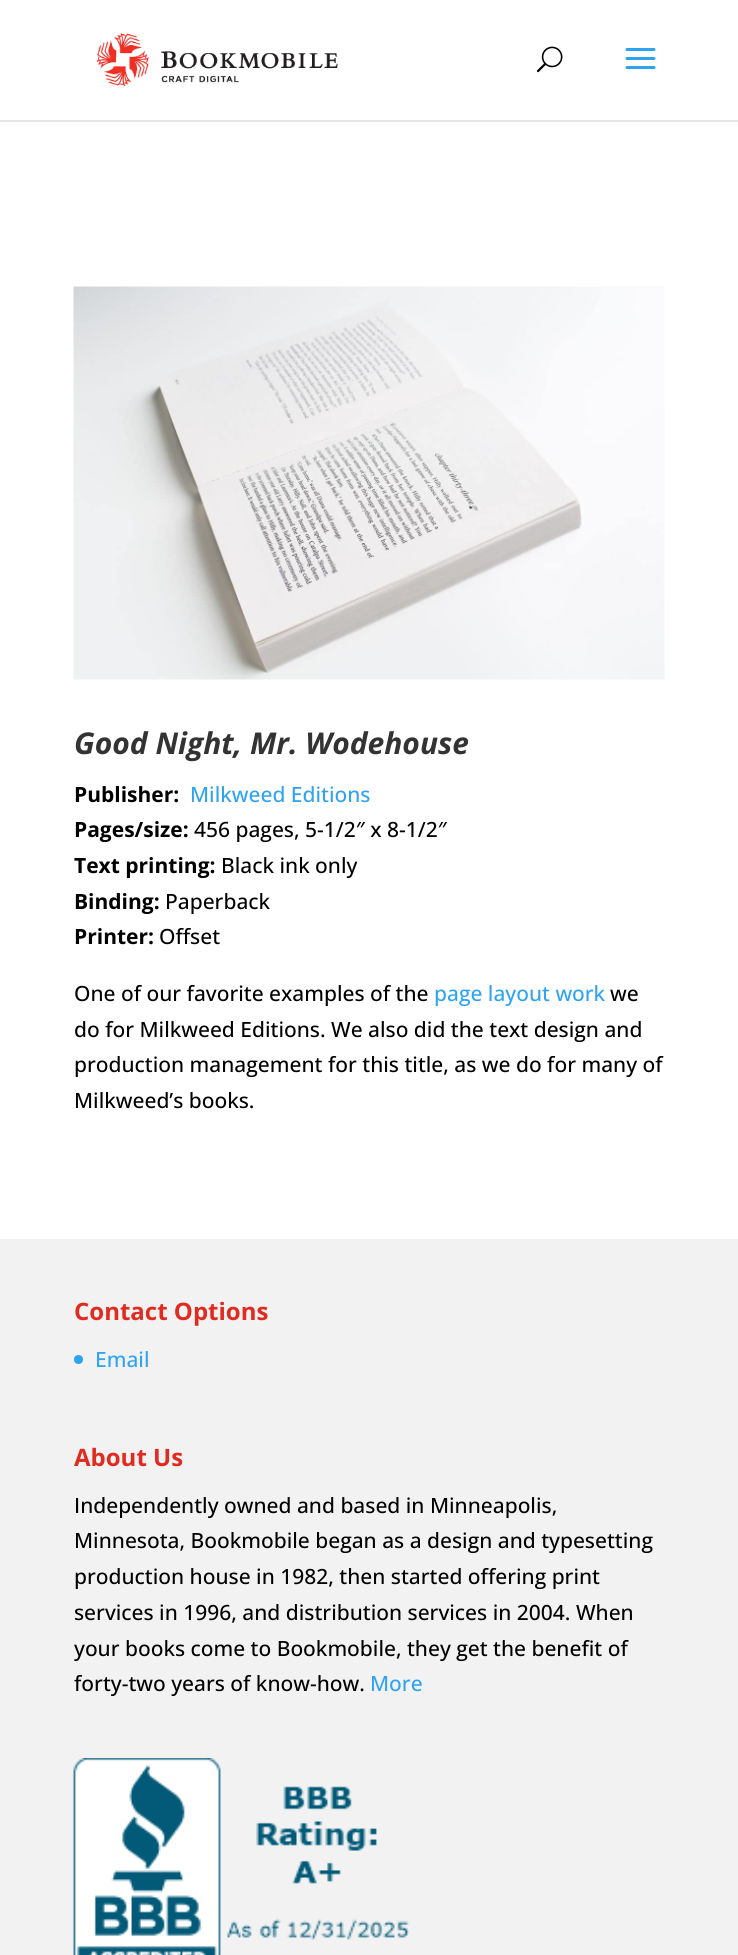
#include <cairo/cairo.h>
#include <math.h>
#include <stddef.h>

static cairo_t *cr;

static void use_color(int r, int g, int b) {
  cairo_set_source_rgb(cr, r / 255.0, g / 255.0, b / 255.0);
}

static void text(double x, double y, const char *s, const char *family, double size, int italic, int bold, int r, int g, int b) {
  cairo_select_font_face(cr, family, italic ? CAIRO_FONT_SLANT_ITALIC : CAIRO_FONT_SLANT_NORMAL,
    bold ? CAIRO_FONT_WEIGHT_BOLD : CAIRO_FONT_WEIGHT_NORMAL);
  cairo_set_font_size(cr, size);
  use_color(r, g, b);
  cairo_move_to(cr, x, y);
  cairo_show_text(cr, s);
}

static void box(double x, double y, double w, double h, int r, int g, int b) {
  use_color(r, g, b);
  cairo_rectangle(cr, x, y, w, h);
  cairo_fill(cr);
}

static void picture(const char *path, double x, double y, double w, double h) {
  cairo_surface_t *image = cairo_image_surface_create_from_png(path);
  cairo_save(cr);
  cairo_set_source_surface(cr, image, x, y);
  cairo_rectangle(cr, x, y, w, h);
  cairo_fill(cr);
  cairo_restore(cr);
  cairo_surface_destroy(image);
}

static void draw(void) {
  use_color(255, 255, 255);
  cairo_paint(cr);
  box(0, 120, 738, 2, 230, 230, 230);
  picture("img_01.png", 97, 33, 241, 53);
  picture("img_02.png", 536, 46, 27, 27);
  picture("img_03.png", 625, 48, 31, 21);
  picture("img_04.png", 73, 286, 592, 394);
  box(0, 1239, 738, 716, 242, 242, 242);
  use_color(46, 163, 242);
  cairo_arc(cr, 78.5, 1359.5, 4.5, 0, 2 * M_PI);
  cairo_fill(cr);
  picture("img_05.png", 73, 1758, 337, 197);
  text(74, 754, "Good Night, Mr. Wodehouse", "Open Sans", 30, 1, 1, 51, 51, 51);
  text(74, 802, "Publisher:", "Open Sans", 21, 0, 1, 0, 0, 0);
  text(190, 802, "Milkweed Editions", "Open Sans Medium", 21, 0, 0, 46, 163, 242);
  text(74, 837, "Pages/size:", "Open Sans", 21, 0, 1, 0, 0, 0);
  text(194, 837, "456 pages, 5-1/2″ x 8-1/2″", "Open Sans Medium", 21, 0, 0, 0, 0, 0);
  text(74, 873, "Text printing:", "Open Sans", 21, 0, 1, 0, 0, 0);
  text(221, 873, "Black ink only", "Open Sans Medium", 21, 0, 0, 0, 0, 0);
  text(74, 909, "Binding:", "Open Sans", 21, 0, 1, 0, 0, 0);
  text(165, 909, "Paperback", "Open Sans Medium", 21, 0, 0, 0, 0, 0);
  text(74, 944, "Printer:", "Open Sans", 21, 0, 1, 0, 0, 0);
  text(159, 944, "Offset", "Open Sans Medium", 21, 0, 0, 0, 0, 0);
  text(74, 1001, "One of our favorite examples of the", "Open Sans Medium", 21, 0, 0, 0, 0, 0);
  text(434, 1001, "page layout work", "Open Sans Medium", 21, 0, 0, 46, 163, 242);
  text(610, 1001, "we", "Open Sans Medium", 21, 0, 0, 0, 0, 0);
  text(74, 1037, "do for Milkweed Editions. We also did the text design and", "Open Sans Medium", 21, 0, 0, 0, 0, 0);
  text(74, 1072, "production management for this title, as we do for many of", "Open Sans Medium", 21, 0, 0, 0, 0, 0);
  text(74, 1108, "Milkweed’s books.", "Open Sans Medium", 21, 0, 0, 0, 0, 0);
  text(74, 1320, "Contact Options", "Open Sans", 24, 0, 1, 224, 43, 32);
  text(95, 1367, "Email", "Open Sans Medium", 21, 0, 0, 46, 163, 242);
  text(74, 1466, "About Us", "Open Sans", 24, 0, 1, 224, 43, 32);
  text(74, 1513, "Independently owned and based in Minneapolis,", "Open Sans Medium", 21, 0, 0, 0, 0, 0);
  text(74, 1548, "Minnesota, Bookmobile began as a design and typesetting", "Open Sans Medium", 21, 0, 0, 0, 0, 0);
  text(74, 1584, "production house in 1982, then started offering print", "Open Sans Medium", 21, 0, 0, 0, 0, 0);
  text(74, 1620, "services in 1996, and distribution services in 2004. When", "Open Sans Medium", 21, 0, 0, 0, 0, 0);
  text(74, 1656, "your books come to Bookmobile, they get the benefit of", "Open Sans Medium", 21, 0, 0, 0, 0, 0);
  text(74, 1691, "forty-two years of know-how.", "Open Sans Medium", 21, 0, 0, 0, 0, 0);
  text(370, 1691, "More", "Open Sans Medium", 21, 0, 0, 46, 163, 242);
}

int main(void) {
  cairo_surface_t *surface = cairo_image_surface_create(CAIRO_FORMAT_RGB24, 738, 1955);
  cr = cairo_create(surface);
  cairo_font_options_t *options = cairo_font_options_create();
  cairo_font_options_set_hint_metrics(options, CAIRO_HINT_METRICS_OFF);
  cairo_font_options_set_hint_style(options, CAIRO_HINT_STYLE_NONE);
  cairo_set_font_options(cr, options);
  cairo_set_miter_limit(cr, 4);
  draw();
  cairo_surface_write_to_png(surface, "out.png");
  cairo_font_options_destroy(options);
  cairo_destroy(cr);
  cairo_surface_destroy(surface);
  return 0;
}
